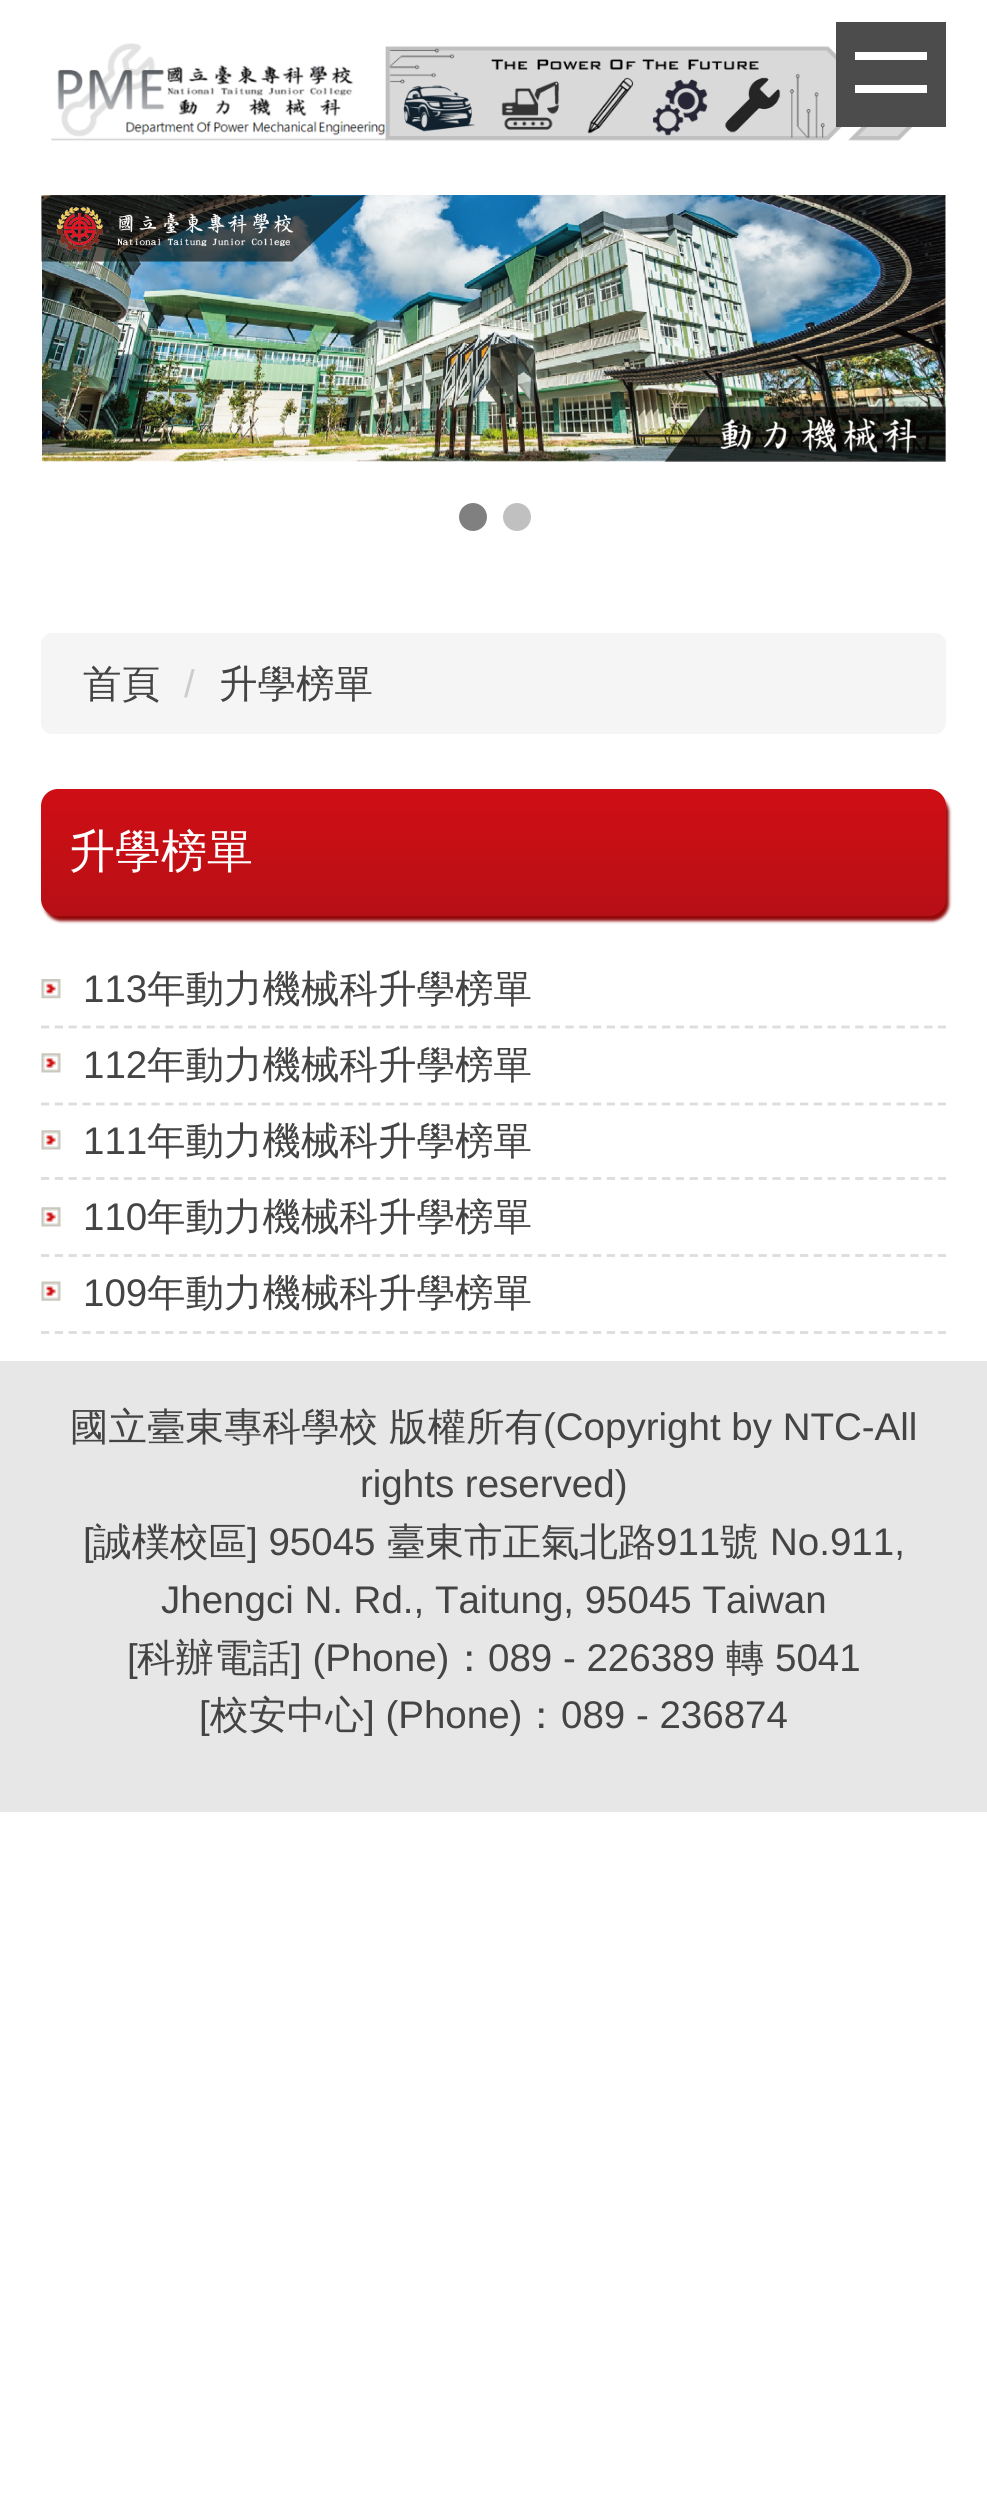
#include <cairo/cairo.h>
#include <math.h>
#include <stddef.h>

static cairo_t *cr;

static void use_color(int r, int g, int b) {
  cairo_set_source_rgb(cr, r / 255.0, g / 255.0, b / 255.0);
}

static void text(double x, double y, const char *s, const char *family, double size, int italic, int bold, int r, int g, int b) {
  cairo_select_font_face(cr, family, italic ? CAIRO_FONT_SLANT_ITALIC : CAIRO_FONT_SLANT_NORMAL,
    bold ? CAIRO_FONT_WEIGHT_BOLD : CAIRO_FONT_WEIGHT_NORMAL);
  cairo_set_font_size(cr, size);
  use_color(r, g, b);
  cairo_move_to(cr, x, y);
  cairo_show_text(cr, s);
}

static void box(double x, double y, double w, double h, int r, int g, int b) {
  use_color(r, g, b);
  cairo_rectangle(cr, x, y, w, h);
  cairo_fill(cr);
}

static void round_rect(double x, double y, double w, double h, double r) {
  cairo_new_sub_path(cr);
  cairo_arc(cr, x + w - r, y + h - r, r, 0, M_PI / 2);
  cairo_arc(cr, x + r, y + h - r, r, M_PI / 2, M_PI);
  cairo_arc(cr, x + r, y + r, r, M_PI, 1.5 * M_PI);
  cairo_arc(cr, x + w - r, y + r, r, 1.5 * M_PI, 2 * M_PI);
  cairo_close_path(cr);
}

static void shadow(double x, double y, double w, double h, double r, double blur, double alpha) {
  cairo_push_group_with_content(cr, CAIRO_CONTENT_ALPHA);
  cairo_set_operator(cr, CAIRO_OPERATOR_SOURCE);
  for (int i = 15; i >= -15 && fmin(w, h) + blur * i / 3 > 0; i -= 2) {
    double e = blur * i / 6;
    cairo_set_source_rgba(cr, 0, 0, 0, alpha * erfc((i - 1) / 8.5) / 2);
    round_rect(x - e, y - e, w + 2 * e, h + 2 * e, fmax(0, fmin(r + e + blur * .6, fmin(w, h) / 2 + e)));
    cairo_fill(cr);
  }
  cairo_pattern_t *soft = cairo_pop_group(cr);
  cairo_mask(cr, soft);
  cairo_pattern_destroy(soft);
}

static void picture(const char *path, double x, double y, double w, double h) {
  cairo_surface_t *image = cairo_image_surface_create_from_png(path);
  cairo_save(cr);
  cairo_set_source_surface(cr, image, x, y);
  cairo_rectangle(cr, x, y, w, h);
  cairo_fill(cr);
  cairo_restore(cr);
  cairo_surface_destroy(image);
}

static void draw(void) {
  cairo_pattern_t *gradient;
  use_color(255, 255, 255);
  cairo_paint(cr);
  picture("img_01.png", 51, 43, 862, 98);
  box(836, 22, 110, 105, 76, 76, 76);
  box(855, 52, 72, 8, 255, 255, 255);
  box(855, 85, 72, 8, 255, 255, 255);
  picture("img_02.png", 41, 195, 905, 267);
  cairo_set_source_rgba(cr, 0, 0, 0, 0.19);
  cairo_new_path(cr);
  cairo_move_to(cr, 110, 399);
  cairo_line_to(cr, 81, 370);
  cairo_line_to(cr, 88.5, 370);
  cairo_line_to(cr, 114, 395);
  cairo_close_path(cr);
  cairo_move_to(cr, 81, 370);
  cairo_line_to(cr, 110, 340.5);
  cairo_line_to(cr, 114, 344.5);
  cairo_line_to(cr, 88.5, 370);
  cairo_close_path(cr);
  cairo_fill(cr);
  cairo_new_path(cr);
  cairo_move_to(cr, 877, 340.5);
  cairo_line_to(cr, 906.5, 370);
  cairo_line_to(cr, 898.5, 370);
  cairo_line_to(cr, 873.5, 344.5);
  cairo_close_path(cr);
  cairo_move_to(cr, 906.5, 370);
  cairo_line_to(cr, 877, 399);
  cairo_line_to(cr, 873.5, 395);
  cairo_line_to(cr, 898.5, 370);
  cairo_close_path(cr);
  cairo_fill(cr);
  use_color(128, 128, 128);
  cairo_arc(cr, 473, 517, 14, 0, 2 * M_PI);
  cairo_fill(cr);
  use_color(192, 192, 192);
  cairo_arc(cr, 517, 517, 14, 0, 2 * M_PI);
  cairo_fill(cr);
  use_color(245, 245, 245);
  round_rect(41, 633, 905, 101, 11);
  cairo_fill(cr);
  use_color(146, 9, 10);
  shadow(44, 795, 905, 126, 17, 1.5, 1);
  gradient = cairo_pattern_create_linear(494, 789, 494, 916);
  cairo_pattern_add_color_stop_rgba(gradient, 0, 0.812, 0.055, 0.082, 1);
  cairo_pattern_add_color_stop_rgba(gradient, 0.5, 0.769, 0.059, 0.082, 1);
  cairo_pattern_add_color_stop_rgba(gradient, 1, 0.714, 0.059, 0.086, 1);
  cairo_set_source(cr, gradient);
  cairo_pattern_destroy(gradient);
  round_rect(41, 789, 905, 127, 17);
  cairo_fill(cr);
  cairo_new_path(cr);
  cairo_move_to(cr, 41, 1027);
  cairo_line_to(cr, 946, 1027);
  use_color(221, 221, 221);
  cairo_set_line_width(cr, 2.8);
  cairo_set_dash(cr, (double[]){8.25, 5.55}, 2, 0);
  cairo_stroke(cr);
  picture("img_03.png", 41, 979, 20, 20);
  cairo_new_path(cr);
  cairo_move_to(cr, 41, 1104);
  cairo_line_to(cr, 946, 1104);
  cairo_stroke(cr);
  picture("img_04.png", 41, 1053, 20, 20);
  cairo_new_path(cr);
  cairo_move_to(cr, 41, 1178.5);
  cairo_line_to(cr, 946, 1178.5);
  cairo_stroke(cr);
  picture("img_04.png", 41, 1130, 20, 20);
  cairo_new_path(cr);
  cairo_move_to(cr, 41, 1255.5);
  cairo_line_to(cr, 946, 1255.5);
  cairo_stroke(cr);
  picture("img_04.png", 41, 1207, 20, 20);
  cairo_new_path(cr);
  cairo_move_to(cr, 41, 1332.5);
  cairo_line_to(cr, 946, 1332.5);
  cairo_stroke(cr);
  picture("img_05.png", 41, 1281, 20, 20);
  box(0, 1361, 987, 451, 231, 231, 231);
  text(83, 697, "首頁", "WenQuanYi Zen Hei Medium", 38.5, 0, 0, 68, 68, 68);
  text(184, 697, "/", "Liberation Sans", 38.5, 0, 0, 204, 204, 204);
  text(219, 697, "升學榜單", "WenQuanYi Zen Hei Medium", 38.5, 0, 0, 68, 68, 68);
  text(69, 867, "升學榜單", "WenQuanYi Zen Hei Medium", 46, 0, 0, 255, 255, 255);
  text(83, 1002, "113", "Liberation Sans", 38.5, 0, 0, 68, 68, 68);
  text(147, 1002, "年動力機械科升學榜單", "WenQuanYi Zen Hei Medium", 38.5, 0, 0, 68, 68, 68);
  text(83, 1078, "112", "Liberation Sans", 38.5, 0, 0, 68, 68, 68);
  text(147, 1078, "年動力機械科升學榜單", "WenQuanYi Zen Hei Medium", 38.5, 0, 0, 68, 68, 68);
  text(83, 1154, "111", "Liberation Sans", 38.5, 0, 0, 68, 68, 68);
  text(147, 1154, "年動力機械科升學榜單", "WenQuanYi Zen Hei Medium", 38.5, 0, 0, 68, 68, 68);
  text(83, 1230, "110", "Liberation Sans", 38.5, 0, 0, 68, 68, 68);
  text(147, 1230, "年動力機械科升學榜單", "WenQuanYi Zen Hei Medium", 38.5, 0, 0, 68, 68, 68);
  text(83, 1306, "109", "Liberation Sans", 38.5, 0, 0, 68, 68, 68);
  text(147, 1306, "年動力機械科升學榜單", "WenQuanYi Zen Hei Medium", 38.5, 0, 0, 68, 68, 68);
  text(70, 1440, "國立臺東專科學校", "WenQuanYi Zen Hei Medium", 38.5, 0, 0, 68, 68, 68);
  text(389, 1440, "版權所有", "WenQuanYi Zen Hei Medium", 38.5, 0, 0, 68, 68, 68);
  text(543, 1440, "(Copyright by NTC-All", "Liberation Sans", 38.5, 0, 0, 68, 68, 68);
  text(360, 1497, "rights reserved)", "Liberation Sans", 38.5, 0, 0, 68, 68, 68);
  text(83, 1555, "[", "Liberation Sans", 38.5, 0, 0, 68, 68, 68);
  text(93, 1555, "誠樸校區", "WenQuanYi Zen Hei Medium", 38.5, 0, 0, 68, 68, 68);
  text(247, 1555, "] 95045", "Liberation Sans", 38.5, 0, 0, 68, 68, 68);
  text(387, 1555, "臺東市正氣北路", "WenQuanYi Zen Hei Medium", 38.5, 0, 0, 68, 68, 68);
  text(656, 1555, "911", "Liberation Sans", 38.5, 0, 0, 68, 68, 68);
  text(720, 1555, "號", "WenQuanYi Zen Hei Medium", 38.5, 0, 0, 68, 68, 68);
  text(770, 1555, "No.911,", "Liberation Sans", 38.5, 0, 0, 68, 68, 68);
  text(161, 1613, "Jhengci N. Rd., Taitung, 95045 Taiwan", "Liberation Sans", 38.5, 0, 0, 68, 68, 68);
  text(127, 1671, "[", "Liberation Sans", 38.5, 0, 0, 68, 68, 68);
  text(137, 1671, "科辦電話", "WenQuanYi Zen Hei Medium", 38.5, 0, 0, 68, 68, 68);
  text(291, 1671, "] (Phone)", "Liberation Sans", 38.5, 0, 0, 68, 68, 68);
  text(450, 1671, "：", "WenQuanYi Zen Hei Medium", 38.5, 0, 0, 68, 68, 68);
  text(488, 1671, "089 - 226389", "Liberation Sans", 38.5, 0, 0, 68, 68, 68);
  text(726, 1671, "轉", "WenQuanYi Zen Hei Medium", 38.5, 0, 0, 68, 68, 68);
  text(775, 1671, "5041", "Liberation Sans", 38.5, 0, 0, 68, 68, 68);
  text(199, 1728, "[", "Liberation Sans", 38.5, 0, 0, 68, 68, 68);
  text(210, 1728, "校安中心", "WenQuanYi Zen Hei Medium", 38.5, 0, 0, 68, 68, 68);
  text(364, 1728, "] (Phone)", "Liberation Sans", 38.5, 0, 0, 68, 68, 68);
  text(522, 1728, "：", "WenQuanYi Zen Hei Medium", 38.5, 0, 0, 68, 68, 68);
  text(561, 1728, "089 - 236874", "Liberation Sans", 38.5, 0, 0, 68, 68, 68);
}

int main(void) {
  cairo_surface_t *surface = cairo_image_surface_create(CAIRO_FORMAT_RGB24, 987, 2506);
  cr = cairo_create(surface);
  cairo_font_options_t *options = cairo_font_options_create();
  cairo_font_options_set_hint_metrics(options, CAIRO_HINT_METRICS_OFF);
  cairo_font_options_set_hint_style(options, CAIRO_HINT_STYLE_NONE);
  cairo_set_font_options(cr, options);
  cairo_set_miter_limit(cr, 4);
  draw();
  cairo_surface_write_to_png(surface, "out.png");
  cairo_font_options_destroy(options);
  cairo_destroy(cr);
  cairo_surface_destroy(surface);
  return 0;
}
